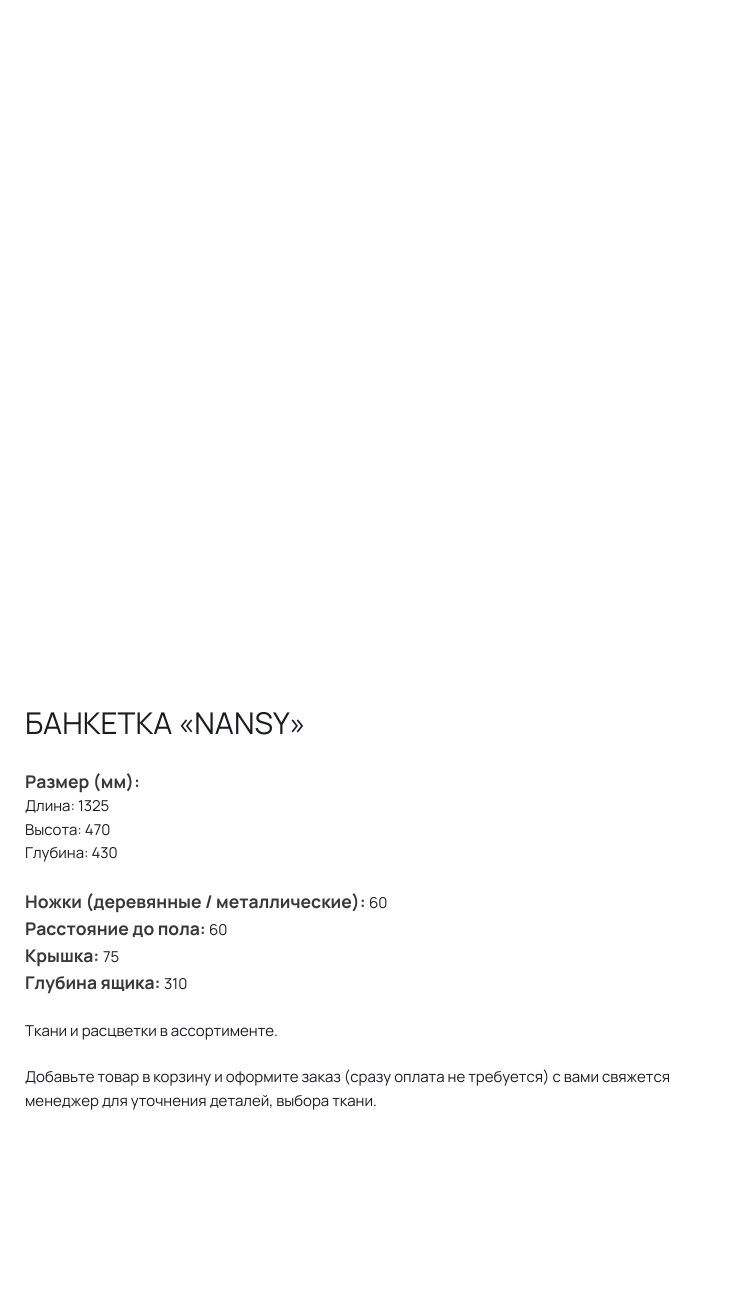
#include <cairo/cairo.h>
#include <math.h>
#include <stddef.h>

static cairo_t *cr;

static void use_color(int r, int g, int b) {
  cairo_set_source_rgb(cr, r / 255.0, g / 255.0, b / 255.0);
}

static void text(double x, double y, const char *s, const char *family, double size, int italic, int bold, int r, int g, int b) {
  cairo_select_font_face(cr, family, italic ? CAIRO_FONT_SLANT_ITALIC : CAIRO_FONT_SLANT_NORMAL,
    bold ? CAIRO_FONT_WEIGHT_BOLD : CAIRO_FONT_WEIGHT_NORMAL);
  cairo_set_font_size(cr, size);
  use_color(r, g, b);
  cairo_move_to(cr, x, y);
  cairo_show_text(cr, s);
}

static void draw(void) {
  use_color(255, 255, 255);
  cairo_paint(cr);
  text(25, 734, "БАНКЕТКА «NANSY»", "Manrope ExtraLight", 30, 0, 0, 26, 28, 34);
  text(25, 788, "Размер (мм):", "Manrope", 17.5, 0, 1, 56, 56, 56);
  text(25, 811, "Длина: 1325", "Manrope ExtraLight", 15, 0, 0, 26, 28, 34);
  text(25, 835, "Высота: 470", "Manrope ExtraLight", 15, 0, 0, 26, 28, 34);
  text(25, 858, "Глубина: 430", "Manrope ExtraLight", 15, 0, 0, 26, 28, 34);
  text(25, 908, "Ножки (деревянные / металлические):", "Manrope", 17.5, 0, 1, 56, 56, 56);
  text(369, 908, "60", "Manrope ExtraLight", 15, 0, 0, 26, 28, 34);
  text(25, 935, "Расстояние до пола:", "Manrope", 17.5, 0, 1, 56, 56, 56);
  text(209, 935, "60", "Manrope ExtraLight", 15, 0, 0, 26, 28, 34);
  text(25, 962, "Крышка:", "Manrope", 17.5, 0, 1, 56, 56, 56);
  text(103, 962, "75", "Manrope ExtraLight", 15, 0, 0, 26, 28, 34);
  text(25, 989, "Глубина ящика:", "Manrope", 17.5, 0, 1, 56, 56, 56);
  text(164, 989, "310", "Manrope ExtraLight", 15, 0, 0, 26, 28, 34);
  text(25, 1036, "Ткани и расцветки в ассортименте.", "Manrope ExtraLight", 15, 0, 0, 26, 28, 34);
  text(25, 1082, "Добавьте товар в корзину и оформите заказ (сразу оплата не требуется) с вами свяжется", "Manrope ExtraLight", 15, 0, 0, 26, 28, 34);
  text(25, 1106, "менеджер для уточнения деталей, выбора ткани.", "Manrope ExtraLight", 15, 0, 0, 26, 28, 34);
}

int main(void) {
  cairo_surface_t *surface = cairo_image_surface_create(CAIRO_FORMAT_RGB24, 744, 1304);
  cr = cairo_create(surface);
  cairo_font_options_t *options = cairo_font_options_create();
  cairo_font_options_set_hint_metrics(options, CAIRO_HINT_METRICS_OFF);
  cairo_font_options_set_hint_style(options, CAIRO_HINT_STYLE_NONE);
  cairo_set_font_options(cr, options);
  cairo_set_miter_limit(cr, 4);
  draw();
  cairo_surface_write_to_png(surface, "out.png");
  cairo_font_options_destroy(options);
  cairo_destroy(cr);
  cairo_surface_destroy(surface);
  return 0;
}
